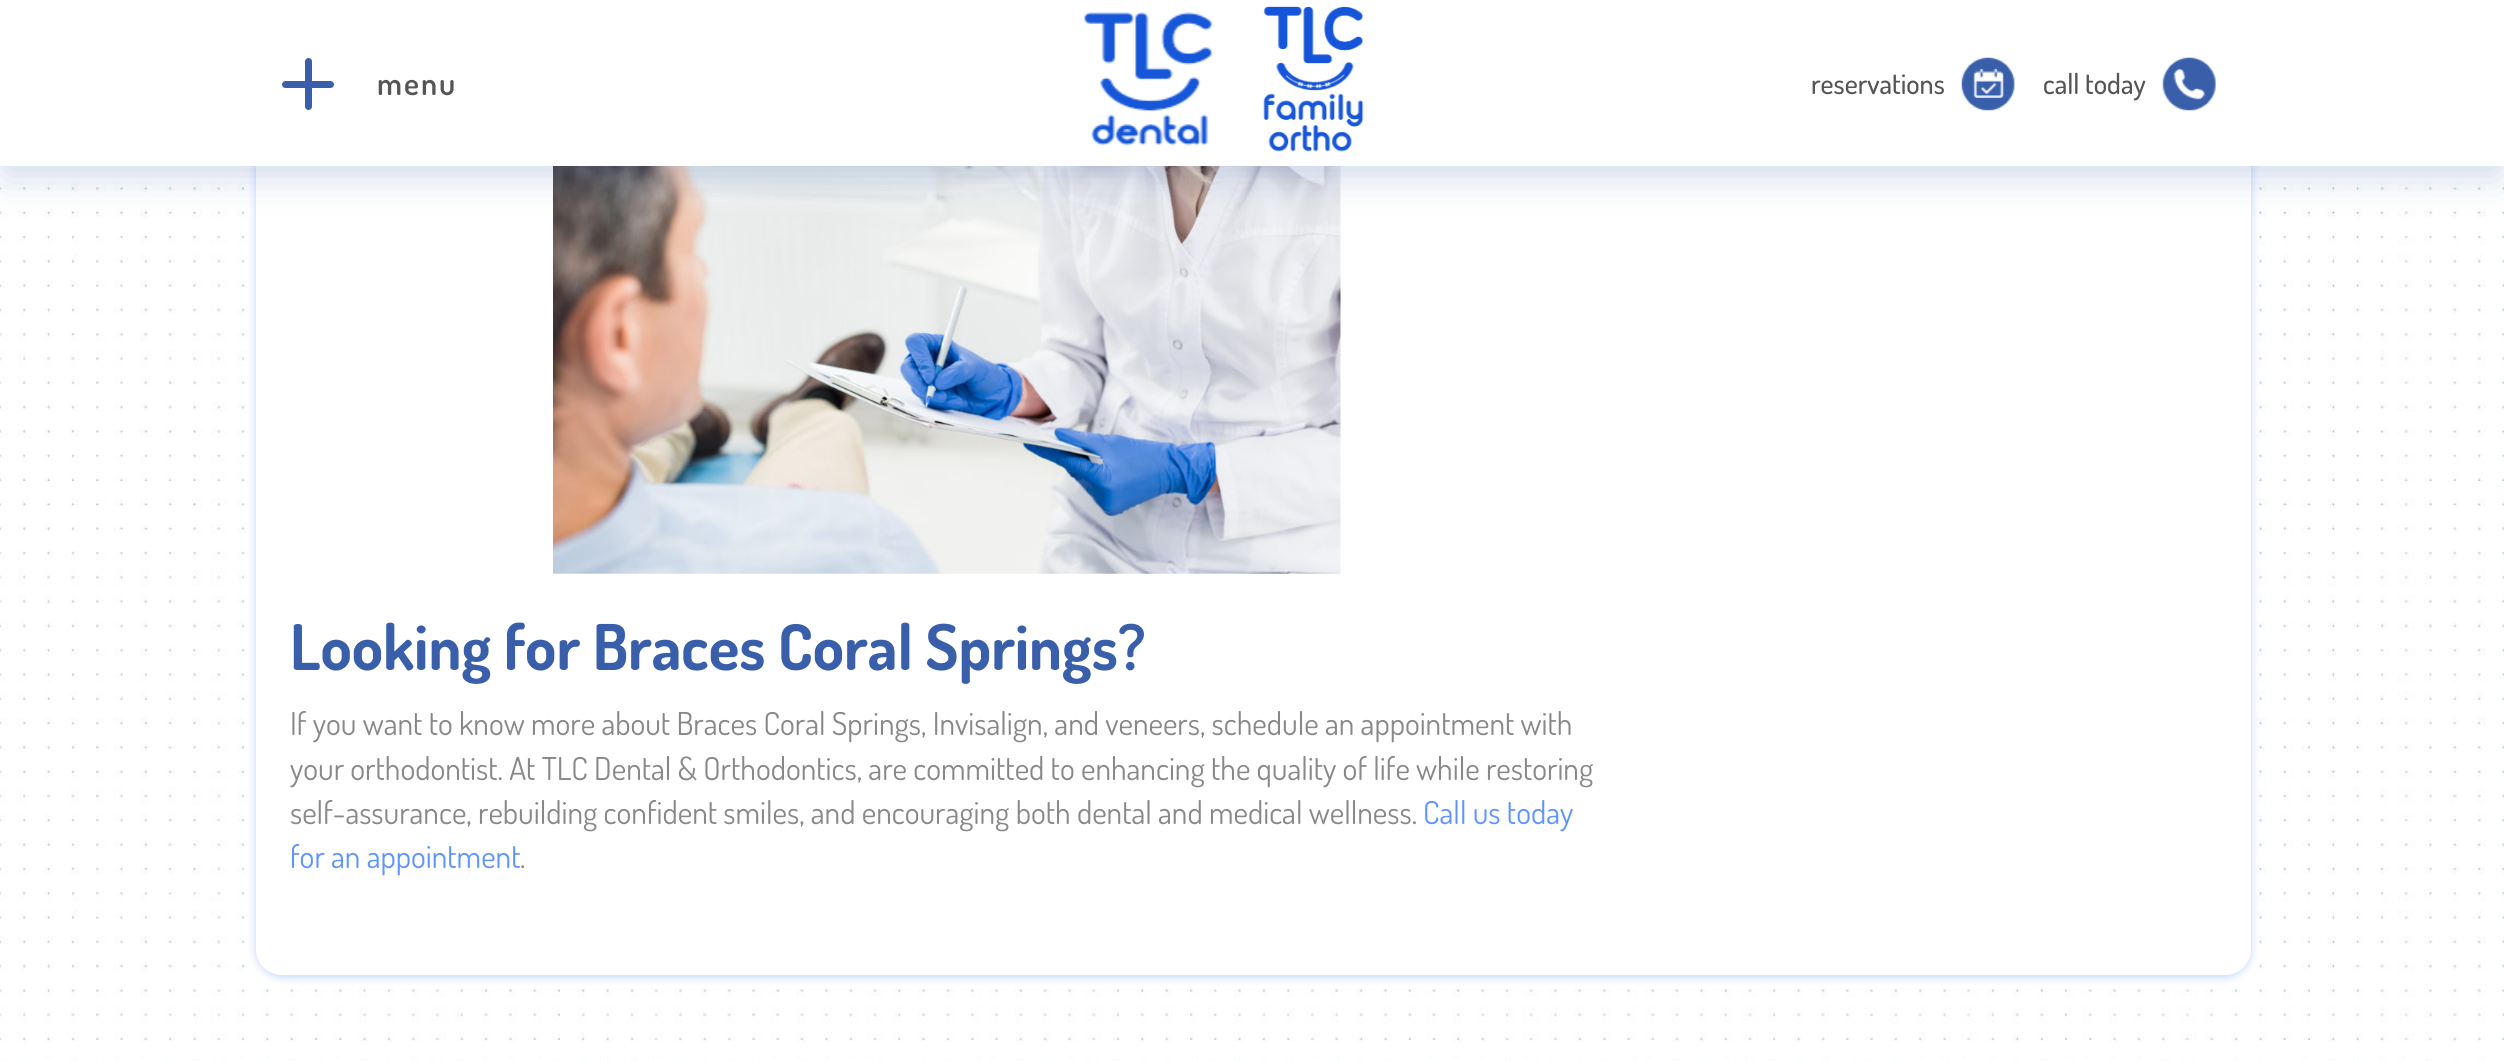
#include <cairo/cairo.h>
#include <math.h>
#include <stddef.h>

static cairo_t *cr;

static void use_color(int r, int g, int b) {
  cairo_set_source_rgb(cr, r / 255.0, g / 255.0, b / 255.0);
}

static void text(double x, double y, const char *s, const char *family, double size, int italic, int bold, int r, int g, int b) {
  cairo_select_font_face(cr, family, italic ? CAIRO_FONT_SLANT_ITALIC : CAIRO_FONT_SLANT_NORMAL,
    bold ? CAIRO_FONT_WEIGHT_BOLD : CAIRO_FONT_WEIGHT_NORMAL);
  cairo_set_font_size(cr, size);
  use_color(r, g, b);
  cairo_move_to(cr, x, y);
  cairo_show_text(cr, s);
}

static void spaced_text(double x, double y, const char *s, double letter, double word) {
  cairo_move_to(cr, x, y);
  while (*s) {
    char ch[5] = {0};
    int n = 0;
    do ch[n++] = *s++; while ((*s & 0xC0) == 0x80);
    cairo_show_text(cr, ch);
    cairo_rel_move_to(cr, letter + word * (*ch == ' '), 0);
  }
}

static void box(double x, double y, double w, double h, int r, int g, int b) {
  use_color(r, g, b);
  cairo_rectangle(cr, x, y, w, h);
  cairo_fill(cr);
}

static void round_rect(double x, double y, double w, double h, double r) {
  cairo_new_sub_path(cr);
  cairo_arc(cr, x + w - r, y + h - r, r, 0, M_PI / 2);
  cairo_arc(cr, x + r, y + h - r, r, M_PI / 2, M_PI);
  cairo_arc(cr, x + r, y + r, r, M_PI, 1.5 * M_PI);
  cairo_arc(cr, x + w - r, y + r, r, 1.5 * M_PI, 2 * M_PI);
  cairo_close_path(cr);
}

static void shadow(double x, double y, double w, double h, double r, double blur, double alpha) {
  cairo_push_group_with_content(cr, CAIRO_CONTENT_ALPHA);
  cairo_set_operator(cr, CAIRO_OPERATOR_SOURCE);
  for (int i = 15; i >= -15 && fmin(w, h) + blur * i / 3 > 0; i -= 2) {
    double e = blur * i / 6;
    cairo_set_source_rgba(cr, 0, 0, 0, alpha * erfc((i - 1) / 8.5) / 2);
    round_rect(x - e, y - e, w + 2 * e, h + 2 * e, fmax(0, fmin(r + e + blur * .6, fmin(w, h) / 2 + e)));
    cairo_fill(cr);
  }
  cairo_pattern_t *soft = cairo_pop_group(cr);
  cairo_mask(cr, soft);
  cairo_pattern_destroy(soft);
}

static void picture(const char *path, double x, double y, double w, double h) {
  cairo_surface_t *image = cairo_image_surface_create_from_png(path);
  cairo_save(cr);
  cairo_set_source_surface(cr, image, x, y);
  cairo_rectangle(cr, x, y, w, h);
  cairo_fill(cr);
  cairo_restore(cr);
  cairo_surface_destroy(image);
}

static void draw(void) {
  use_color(255, 255, 255);
  cairo_paint(cr);
  picture("img_05.png", 0, 166, 2504, 895);
  use_color(94, 148, 255);
  shadow(256, -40, 1995, 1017, 26, 4.5, 0.4);
  use_color(255, 255, 255);
  cairo_new_path(cr);
  cairo_move_to(cr, 256, -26);
  cairo_line_to(cr, 2251, -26);
  cairo_line_to(cr, 2251, 949);
  cairo_curve_to(cr, 2251, 963.5, 2239.5, 975, 2225, 975);
  cairo_line_to(cr, 282, 975);
  cairo_curve_to(cr, 267.5, 975, 256, 963.5, 256, 949);
  cairo_close_path(cr);
  cairo_fill(cr);
  picture("img_06.png", 553, 166, 788, 408);
  use_color(57, 95, 171);
  shadow(5, 19, 2494, 156, 0, 19, 0.25);
  box(0, 0, 2504, 166, 255, 255, 255);
  use_color(57, 95, 171);
  round_rect(282, 81, 52, 7, 3.5);
  cairo_fill(cr);
  round_rect(305, 58, 7, 52, 3.5);
  cairo_fill(cr);
  picture("img_01.png", 1083, 12, 130, 134);
  picture("img_02.png", 1263, 6, 101, 146);
  picture("img_03.png", 1961, 57, 54, 54);
  picture("img_04.png", 2162, 57, 54, 54);
  cairo_select_font_face(cr, "Dosis SemiBold", CAIRO_FONT_SLANT_NORMAL, CAIRO_FONT_WEIGHT_NORMAL);
  cairo_set_font_size(cr, 31.5);
  use_color(85, 85, 85);
  spaced_text(377, 95, "menu", 2, 0);
  text(1811, 94, "reservations", "Dosis Medium", 28, 0, 0, 85, 85, 85);
  text(2043, 94, "call today", "Dosis Medium", 28, 0, 0, 85, 85, 85);
  text(290, 670, "Looking for Braces Coral Springs?", "Dosis", 63, 0, 1, 57, 95, 171);
  text(290, 735, "If you want to know more about Braces Coral Springs, Invisalign, and veneers, schedule an appointment with", "Dosis", 31.5, 0, 0, 136, 136, 136);
  text(290, 780, "your orthodontist. At TLC Dental & Orthodontics, are committed to enhancing the quality of life while restoring", "Dosis", 31.5, 0, 0, 136, 136, 136);
  text(290, 824, "self-assurance, rebuilding confident smiles, and encouraging both dental and medical wellness.", "Dosis", 31.5, 0, 0, 136, 136, 136);
  text(1423, 824, "Call us today", "Dosis", 31.5, 0, 0, 94, 148, 255);
  text(290, 868, "for an appointment", "Dosis", 31.5, 0, 0, 94, 148, 255);
  text(520, 868, ".", "Dosis", 31.5, 0, 0, 136, 136, 136);
}

int main(void) {
  cairo_surface_t *surface = cairo_image_surface_create(CAIRO_FORMAT_RGB24, 2504, 1061);
  cr = cairo_create(surface);
  cairo_font_options_t *options = cairo_font_options_create();
  cairo_font_options_set_hint_metrics(options, CAIRO_HINT_METRICS_OFF);
  cairo_font_options_set_hint_style(options, CAIRO_HINT_STYLE_NONE);
  cairo_set_font_options(cr, options);
  cairo_set_miter_limit(cr, 4);
  draw();
  cairo_surface_write_to_png(surface, "out.png");
  cairo_font_options_destroy(options);
  cairo_destroy(cr);
  cairo_surface_destroy(surface);
  return 0;
}
